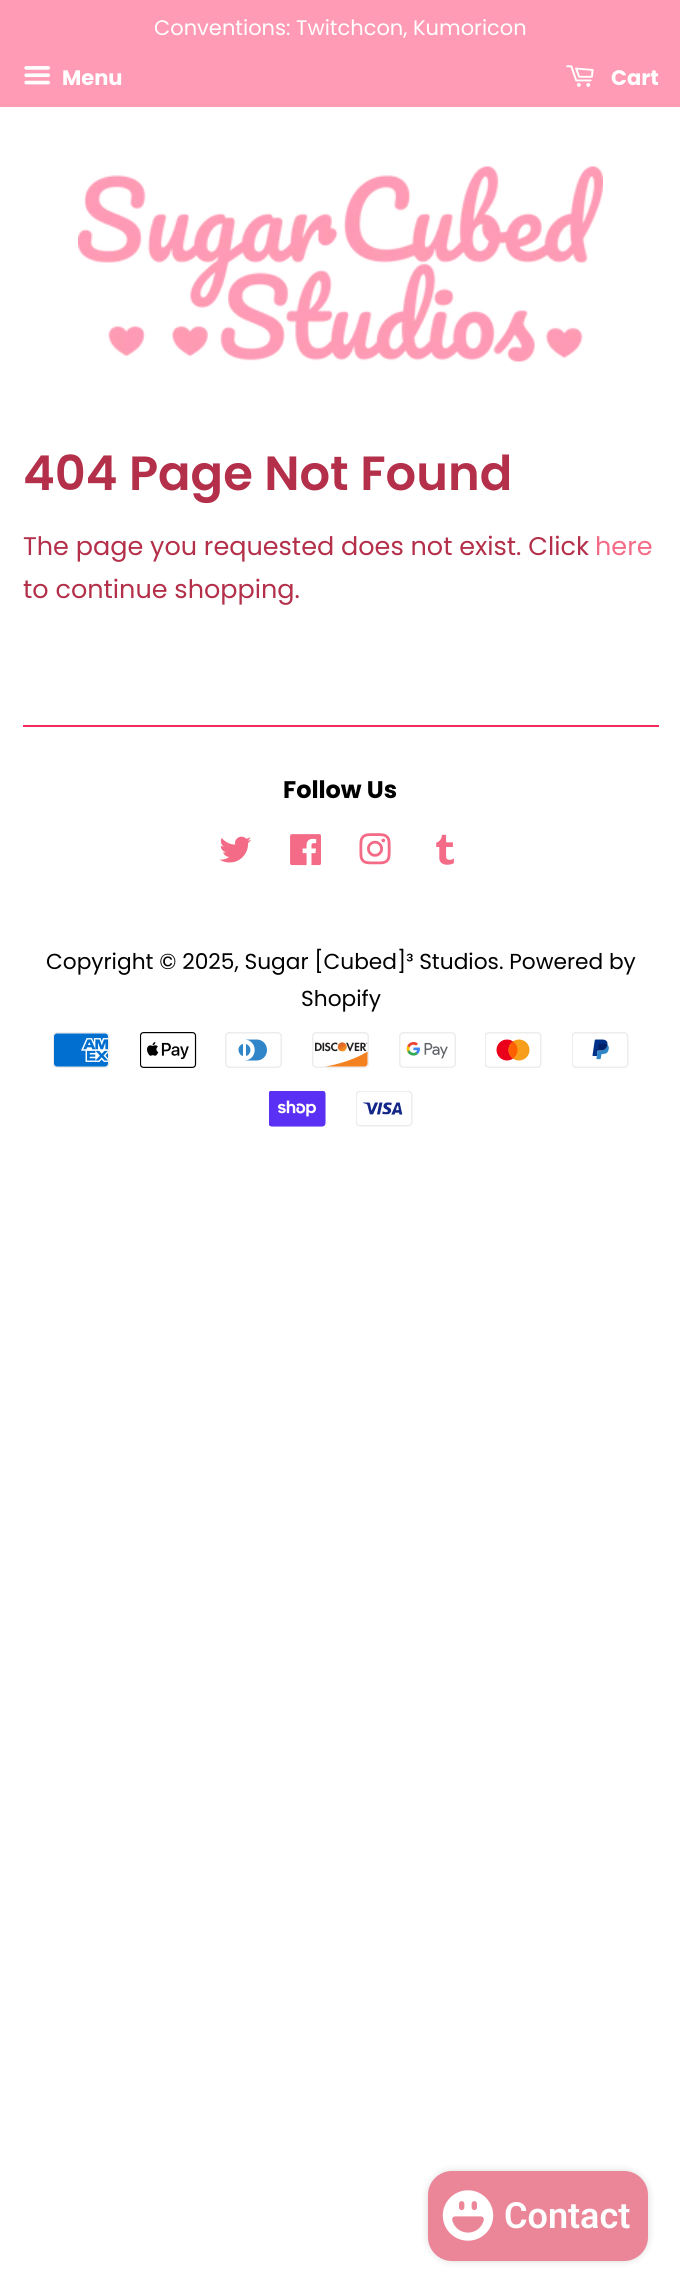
#include <cairo/cairo.h>
#include <math.h>
#include <stddef.h>

static cairo_t *cr;

static void use_color(int r, int g, int b) {
  cairo_set_source_rgb(cr, r / 255.0, g / 255.0, b / 255.0);
}

static void text(double x, double y, const char *s, const char *family, double size, int italic, int bold, int r, int g, int b) {
  cairo_select_font_face(cr, family, italic ? CAIRO_FONT_SLANT_ITALIC : CAIRO_FONT_SLANT_NORMAL,
    bold ? CAIRO_FONT_WEIGHT_BOLD : CAIRO_FONT_WEIGHT_NORMAL);
  cairo_set_font_size(cr, size);
  use_color(r, g, b);
  cairo_move_to(cr, x, y);
  cairo_show_text(cr, s);
}

static void box(double x, double y, double w, double h, int r, int g, int b) {
  use_color(r, g, b);
  cairo_rectangle(cr, x, y, w, h);
  cairo_fill(cr);
}

static void round_rect(double x, double y, double w, double h, double r) {
  cairo_new_sub_path(cr);
  cairo_arc(cr, x + w - r, y + h - r, r, 0, M_PI / 2);
  cairo_arc(cr, x + r, y + h - r, r, M_PI / 2, M_PI);
  cairo_arc(cr, x + r, y + r, r, M_PI, 1.5 * M_PI);
  cairo_arc(cr, x + w - r, y + r, r, 1.5 * M_PI, 2 * M_PI);
  cairo_close_path(cr);
}

static void shadow(double x, double y, double w, double h, double r, double blur, double alpha) {
  cairo_push_group_with_content(cr, CAIRO_CONTENT_ALPHA);
  cairo_set_operator(cr, CAIRO_OPERATOR_SOURCE);
  for (int i = 15; i >= -15 && fmin(w, h) + blur * i / 3 > 0; i -= 2) {
    double e = blur * i / 6;
    cairo_set_source_rgba(cr, 0, 0, 0, alpha * erfc((i - 1) / 8.5) / 2);
    round_rect(x - e, y - e, w + 2 * e, h + 2 * e, fmax(0, fmin(r + e + blur * .6, fmin(w, h) / 2 + e)));
    cairo_fill(cr);
  }
  cairo_pattern_t *soft = cairo_pop_group(cr);
  cairo_mask(cr, soft);
  cairo_pattern_destroy(soft);
}

static void picture(const char *path, double x, double y, double w, double h) {
  cairo_surface_t *image = cairo_image_surface_create_from_png(path);
  cairo_save(cr);
  cairo_set_source_surface(cr, image, x, y);
  cairo_rectangle(cr, x, y, w, h);
  cairo_fill(cr);
  cairo_restore(cr);
  cairo_surface_destroy(image);
}

static void draw(void) {
  use_color(255, 255, 255);
  cairo_paint(cr);
  box(0, 0, 680, 107, 255, 155, 180);
  picture("img_01.png", 24, 66, 26, 19);
  picture("img_02.png", 566, 65, 28, 22);
  picture("img_03.png", 78, 166, 525, 196);
  box(23, 725, 636, 2, 243, 44, 94);
  picture("img_04.png", 219, 836, 32, 27);
  picture("img_05.png", 290, 834, 31, 32);
  picture("img_06.png", 359, 833, 32, 32);
  picture("img_07.png", 436, 834, 18, 31);
  picture("img_08.png", 53, 1032, 57, 36);
  picture("img_09.png", 140, 1032, 57, 36);
  picture("img_10.png", 225, 1032, 57, 36);
  picture("img_11.png", 312, 1032, 57, 36);
  picture("img_12.png", 399, 1032, 57, 36);
  picture("img_13.png", 485, 1032, 57, 36);
  picture("img_14.png", 572, 1032, 57, 36);
  picture("img_15.png", 269, 1091, 57, 36);
  picture("img_16.png", 356, 1091, 57, 36);
  use_color(0, 0, 0);
  shadow(428, 2171, 220, 90, 24, 4, 0.15);
  use_color(234, 134, 152);
  round_rect(428, 2171, 220, 90, 24);
  cairo_fill(cr);
  picture("img_17.png", 442, 2190, 52, 51);
  text(154, 35, "Conventions: Twitchcon, Kumoricon", "Poppins", 21, 0, 0, 255, 255, 255);
  text(62, 85, "Menu", "Poppins", 21, 0, 1, 255, 255, 255);
  text(611, 85, "Cart", "Poppins", 21, 0, 1, 255, 255, 255);
  text(23, 490, "404 Page Not Found", "Poppins SemiBold", 48, 0, 0, 180, 47, 73);
  text(23, 555, "The page you requested does not exist. Click", "Poppins", 25.5, 0, 0, 180, 47, 73);
  text(595, 555, "here", "Poppins", 25.5, 0, 0, 243, 107, 134);
  text(23, 598, "to continue shopping.", "Poppins", 25.5, 0, 0, 180, 47, 73);
  text(283, 798, "Follow Us", "Poppins", 24, 0, 1, 0, 0, 0);
  text(46, 969, "Copyright © 2025, Sugar [Cubed]³ Studios. Powered by", "Poppins", 21.7, 0, 0, 0, 0, 0);
  text(301, 1006, "Shopify", "Poppins", 21.7, 0, 0, 0, 0, 0);
  text(504, 2228, "Contact", "Roboto SemiBold", 36, 0, 0, 255, 255, 255);
}

int main(void) {
  cairo_surface_t *surface = cairo_image_surface_create(CAIRO_FORMAT_RGB24, 680, 2292);
  cr = cairo_create(surface);
  cairo_font_options_t *options = cairo_font_options_create();
  cairo_font_options_set_hint_metrics(options, CAIRO_HINT_METRICS_OFF);
  cairo_font_options_set_hint_style(options, CAIRO_HINT_STYLE_NONE);
  cairo_set_font_options(cr, options);
  cairo_set_miter_limit(cr, 4);
  draw();
  cairo_surface_write_to_png(surface, "out.png");
  cairo_font_options_destroy(options);
  cairo_destroy(cr);
  cairo_surface_destroy(surface);
  return 0;
}
